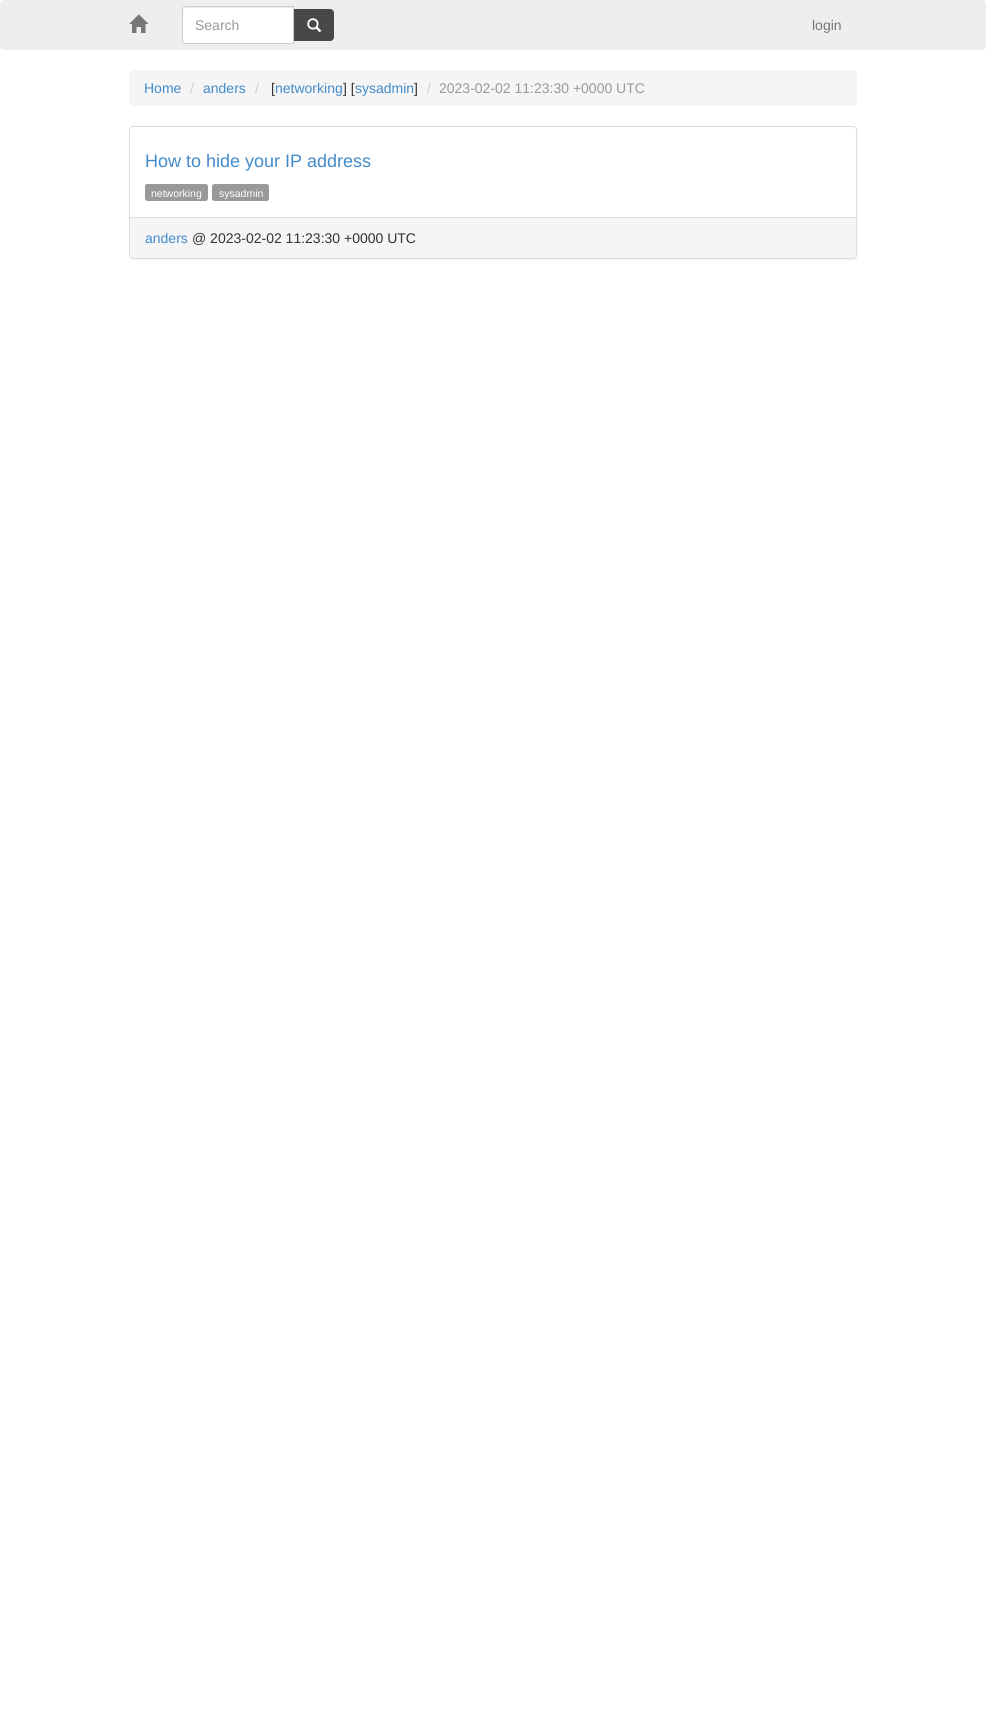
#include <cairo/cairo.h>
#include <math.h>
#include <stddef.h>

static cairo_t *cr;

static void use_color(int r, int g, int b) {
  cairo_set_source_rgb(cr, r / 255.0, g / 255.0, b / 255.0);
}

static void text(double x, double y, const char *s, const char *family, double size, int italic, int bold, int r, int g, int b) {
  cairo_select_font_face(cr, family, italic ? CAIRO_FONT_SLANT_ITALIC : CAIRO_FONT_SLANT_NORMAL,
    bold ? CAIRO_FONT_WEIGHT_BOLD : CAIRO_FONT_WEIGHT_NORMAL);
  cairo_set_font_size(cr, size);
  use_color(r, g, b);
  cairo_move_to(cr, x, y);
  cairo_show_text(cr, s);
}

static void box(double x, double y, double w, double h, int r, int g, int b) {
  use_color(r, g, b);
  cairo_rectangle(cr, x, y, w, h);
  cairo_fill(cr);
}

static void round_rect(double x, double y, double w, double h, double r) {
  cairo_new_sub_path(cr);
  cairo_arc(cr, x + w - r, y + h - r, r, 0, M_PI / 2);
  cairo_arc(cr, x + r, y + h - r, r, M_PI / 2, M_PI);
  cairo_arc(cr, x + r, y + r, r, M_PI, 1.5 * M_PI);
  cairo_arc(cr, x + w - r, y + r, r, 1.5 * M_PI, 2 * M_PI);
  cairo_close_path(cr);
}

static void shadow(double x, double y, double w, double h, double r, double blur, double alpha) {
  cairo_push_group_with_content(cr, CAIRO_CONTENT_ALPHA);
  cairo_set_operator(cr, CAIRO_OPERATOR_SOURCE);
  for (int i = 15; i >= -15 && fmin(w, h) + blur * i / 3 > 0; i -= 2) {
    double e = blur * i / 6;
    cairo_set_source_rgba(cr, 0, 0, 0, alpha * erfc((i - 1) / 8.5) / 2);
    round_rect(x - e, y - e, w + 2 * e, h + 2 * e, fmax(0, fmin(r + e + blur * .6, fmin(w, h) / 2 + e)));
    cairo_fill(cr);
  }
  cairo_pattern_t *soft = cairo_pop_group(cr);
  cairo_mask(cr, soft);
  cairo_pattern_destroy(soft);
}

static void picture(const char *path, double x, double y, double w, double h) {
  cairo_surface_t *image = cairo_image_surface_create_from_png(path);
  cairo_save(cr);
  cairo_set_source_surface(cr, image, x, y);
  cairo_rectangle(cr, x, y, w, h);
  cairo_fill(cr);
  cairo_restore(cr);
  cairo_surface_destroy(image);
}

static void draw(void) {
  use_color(255, 255, 255);
  cairo_paint(cr);
  use_color(238, 238, 238);
  round_rect(0, 0, 986, 50, 4);
  cairo_fill(cr);
  picture("img_01.png", 129, 14, 20, 19);
  use_color(255, 255, 255);
  cairo_new_path(cr);
  cairo_move_to(cr, 186, 6);
  cairo_line_to(cr, 294, 6);
  cairo_line_to(cr, 294, 44);
  cairo_line_to(cr, 186, 44);
  cairo_curve_to(cr, 184, 44, 182, 42, 182, 40);
  cairo_line_to(cr, 182, 10);
  cairo_curve_to(cr, 182, 8, 184, 6, 186, 6);
  cairo_close_path(cr);
  cairo_fill(cr);
  use_color(236, 236, 236);
  cairo_new_path(cr);
  cairo_move_to(cr, 186, 8);
  cairo_line_to(cr, 293, 8);
  cairo_line_to(cr, 293, 7);
  cairo_line_to(cr, 186, 7);
  cairo_curve_to(cr, 184, 7, 183, 8, 183, 10);
  cairo_line_to(cr, 183, 11);
  cairo_curve_to(cr, 183, 9, 184, 8, 186, 8);
  cairo_close_path(cr);
  cairo_fill(cr);
  cairo_new_path(cr);
  cairo_move_to(cr, 186, 6.5);
  cairo_line_to(cr, 293.5, 6.5);
  cairo_line_to(cr, 293.5, 43.5);
  cairo_line_to(cr, 186, 43.5);
  cairo_curve_to(cr, 184, 43.5, 182.5, 42, 182.5, 40);
  cairo_line_to(cr, 182.5, 10);
  cairo_curve_to(cr, 182.5, 8, 184, 6.5, 186, 6.5);
  cairo_close_path(cr);
  use_color(204, 204, 204);
  cairo_set_line_width(cr, 1);
  cairo_stroke(cr);
  use_color(71, 73, 73);
  cairo_new_path(cr);
  cairo_move_to(cr, 294.5, 9.5);
  cairo_line_to(cr, 330, 9.5);
  cairo_curve_to(cr, 332, 9.5, 333.5, 11, 333.5, 13);
  cairo_line_to(cr, 333.5, 37);
  cairo_curve_to(cr, 333.5, 39, 332, 40.5, 330, 40.5);
  cairo_line_to(cr, 294.5, 40.5);
  cairo_close_path(cr);
  cairo_fill_preserve(cr);
  cairo_stroke(cr);
  picture("img_02.png", 307, 18, 15, 15);
  use_color(245, 245, 245);
  round_rect(129, 70, 728, 36, 4);
  cairo_fill(cr);
  use_color(0, 0, 0);
  shadow(129, 127, 728, 133, 4, 0.5, 0.05);
  use_color(255, 255, 255);
  round_rect(129.5, 126.5, 727, 132, 3.5);
  cairo_fill_preserve(cr);
  use_color(221, 221, 221);
  cairo_stroke(cr);
  use_color(153, 153, 153);
  round_rect(145, 184, 63, 17, 2.5);
  cairo_fill(cr);
  round_rect(212, 184, 57, 17, 2.5);
  cairo_fill(cr);
  use_color(245, 245, 245);
  cairo_new_path(cr);
  cairo_move_to(cr, 130, 217);
  cairo_line_to(cr, 856, 217);
  cairo_line_to(cr, 856, 255);
  cairo_curve_to(cr, 856, 256.5, 854.5, 258, 853, 258);
  cairo_line_to(cr, 133, 258);
  cairo_curve_to(cr, 131.5, 258, 130, 256.5, 130, 255);
  cairo_close_path(cr);
  cairo_fill(cr);
  box(130, 217, 726, 1, 221, 221, 221);
  text(195, 30, "Search", "Liberation Sans", 14, 0, 0, 153, 153, 153);
  text(812, 30, "login", "Liberation Sans", 14, 0, 0, 119, 119, 119);
  text(144, 93, "Home", "Liberation Sans", 14, 0, 0, 66, 139, 202);
  text(190, 93, "/", "Liberation Sans", 14, 0, 0, 204, 204, 204);
  text(203, 93, "anders", "Liberation Sans", 14, 0, 0, 66, 139, 202);
  text(255, 93, "/", "Liberation Sans", 14, 0, 0, 204, 204, 204);
  text(271, 93, "[", "Liberation Sans", 14, 0, 0, 51, 51, 51);
  text(275, 93, "networking", "Liberation Sans", 14, 0, 0, 66, 139, 202);
  text(343, 93, "] [", "Liberation Sans", 14, 0, 0, 51, 51, 51);
  text(355, 93, "sysadmin", "Liberation Sans", 14, 0, 0, 66, 139, 202);
  text(414, 93, "]", "Liberation Sans", 14, 0, 0, 51, 51, 51);
  text(427, 93, "/", "Liberation Sans", 14, 0, 0, 204, 204, 204);
  text(439, 93, "2023-02-02 11:23:30 +0000 UTC", "Liberation Sans", 14, 0, 0, 153, 153, 153);
  text(145, 167, "How to hide your IP address", "Liberation Sans", 18, 0, 0, 66, 139, 202);
  text(151, 197, "networking", "Liberation Sans", 10.5, 0, 0, 255, 255, 255);
  text(219, 197, "sysadmin", "Liberation Sans", 10.5, 0, 0, 255, 255, 255);
  text(145, 243, "anders", "Liberation Sans", 14, 0, 0, 66, 139, 202);
  text(192, 243, "@ 2023-02-02 11:23:30 +0000 UTC", "Liberation Sans", 14, 0, 0, 51, 51, 51);
}

int main(void) {
  cairo_surface_t *surface = cairo_image_surface_create(CAIRO_FORMAT_RGB24, 986, 1727);
  cr = cairo_create(surface);
  cairo_font_options_t *options = cairo_font_options_create();
  cairo_font_options_set_hint_metrics(options, CAIRO_HINT_METRICS_OFF);
  cairo_font_options_set_hint_style(options, CAIRO_HINT_STYLE_NONE);
  cairo_set_font_options(cr, options);
  cairo_set_miter_limit(cr, 4);
  draw();
  cairo_surface_write_to_png(surface, "out.png");
  cairo_font_options_destroy(options);
  cairo_destroy(cr);
  cairo_surface_destroy(surface);
  return 0;
}
